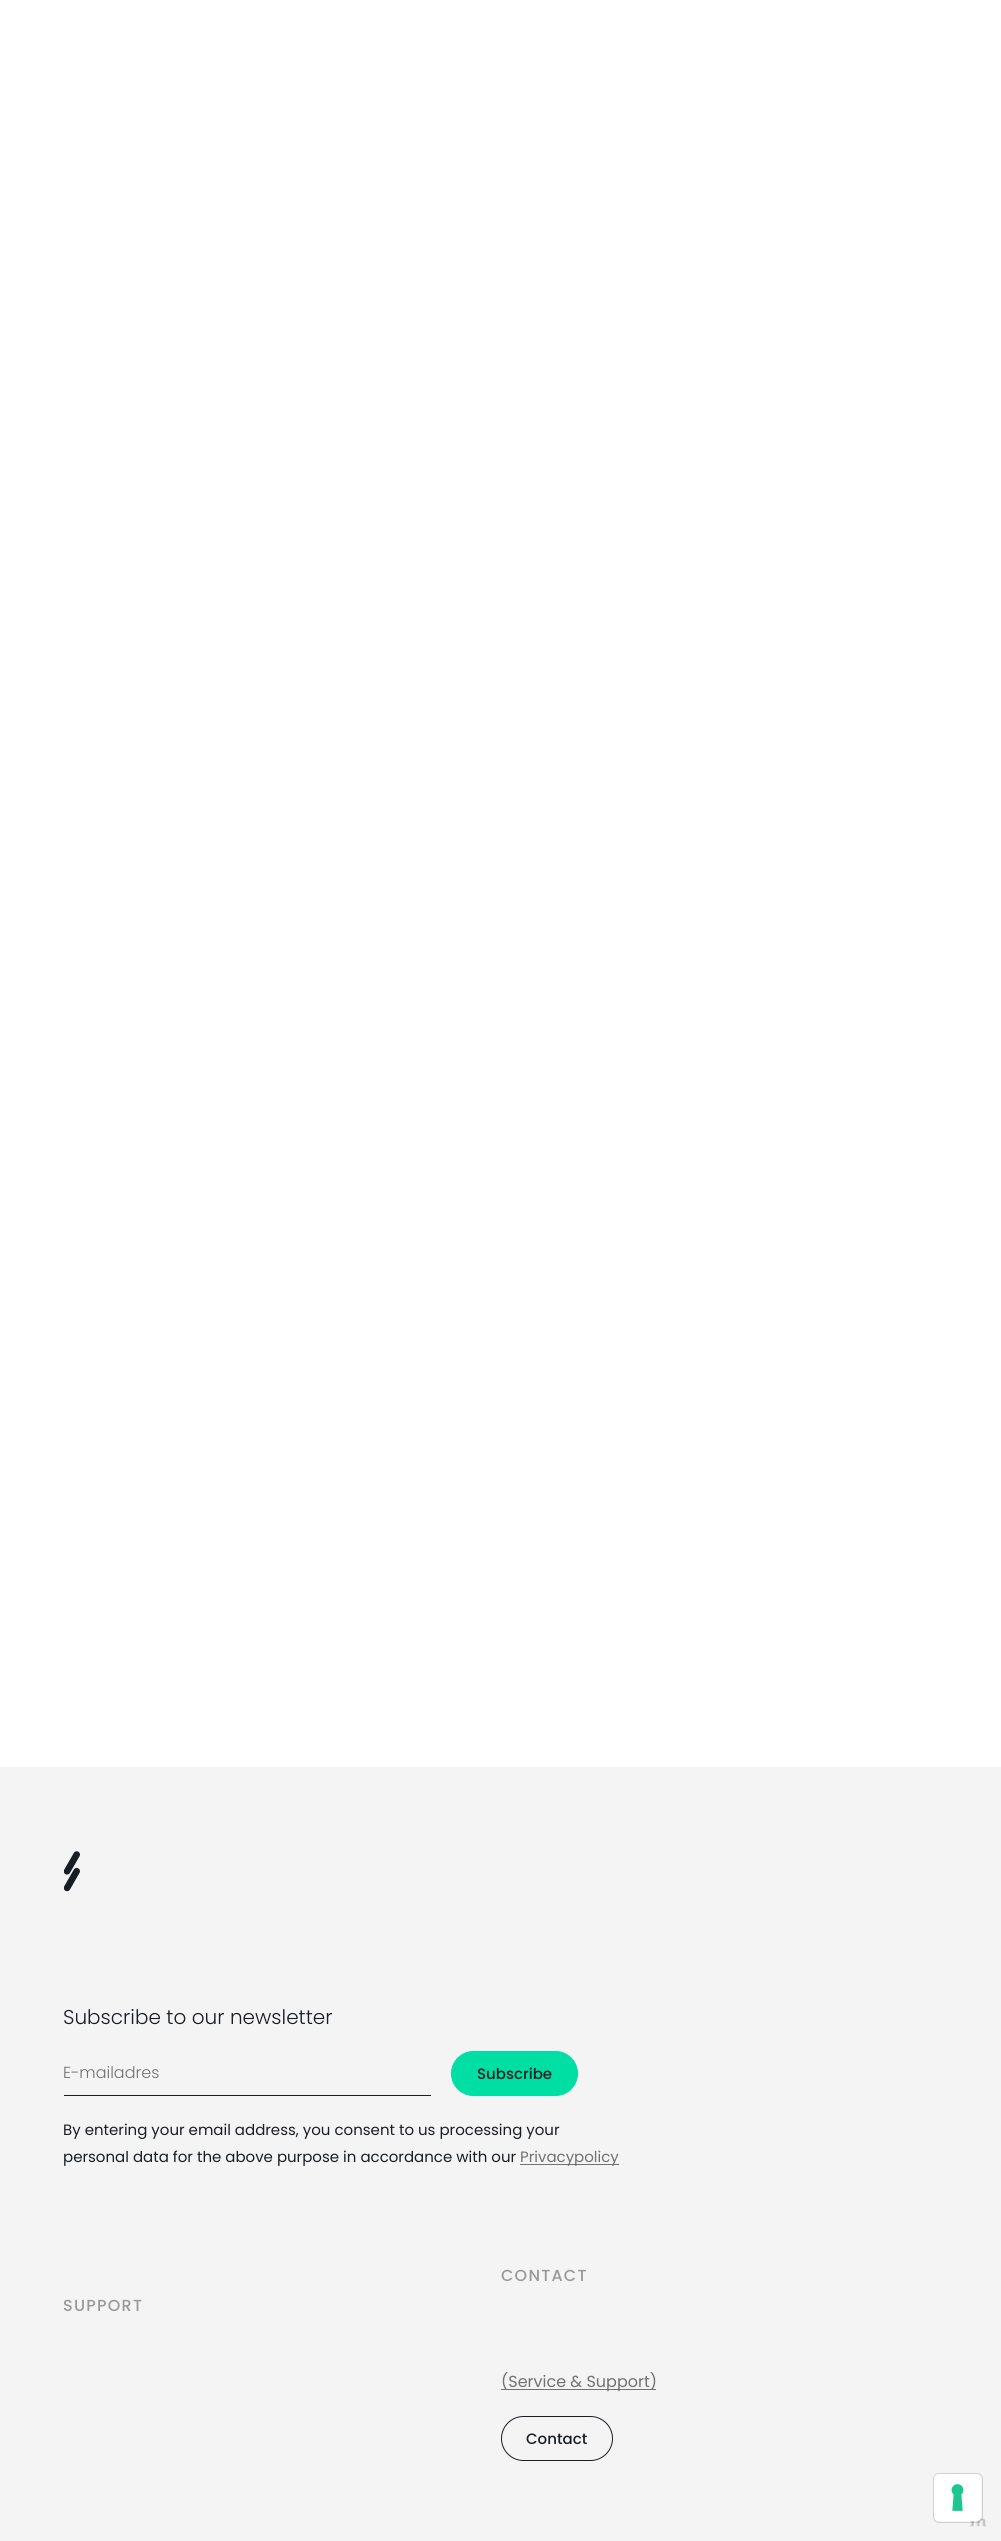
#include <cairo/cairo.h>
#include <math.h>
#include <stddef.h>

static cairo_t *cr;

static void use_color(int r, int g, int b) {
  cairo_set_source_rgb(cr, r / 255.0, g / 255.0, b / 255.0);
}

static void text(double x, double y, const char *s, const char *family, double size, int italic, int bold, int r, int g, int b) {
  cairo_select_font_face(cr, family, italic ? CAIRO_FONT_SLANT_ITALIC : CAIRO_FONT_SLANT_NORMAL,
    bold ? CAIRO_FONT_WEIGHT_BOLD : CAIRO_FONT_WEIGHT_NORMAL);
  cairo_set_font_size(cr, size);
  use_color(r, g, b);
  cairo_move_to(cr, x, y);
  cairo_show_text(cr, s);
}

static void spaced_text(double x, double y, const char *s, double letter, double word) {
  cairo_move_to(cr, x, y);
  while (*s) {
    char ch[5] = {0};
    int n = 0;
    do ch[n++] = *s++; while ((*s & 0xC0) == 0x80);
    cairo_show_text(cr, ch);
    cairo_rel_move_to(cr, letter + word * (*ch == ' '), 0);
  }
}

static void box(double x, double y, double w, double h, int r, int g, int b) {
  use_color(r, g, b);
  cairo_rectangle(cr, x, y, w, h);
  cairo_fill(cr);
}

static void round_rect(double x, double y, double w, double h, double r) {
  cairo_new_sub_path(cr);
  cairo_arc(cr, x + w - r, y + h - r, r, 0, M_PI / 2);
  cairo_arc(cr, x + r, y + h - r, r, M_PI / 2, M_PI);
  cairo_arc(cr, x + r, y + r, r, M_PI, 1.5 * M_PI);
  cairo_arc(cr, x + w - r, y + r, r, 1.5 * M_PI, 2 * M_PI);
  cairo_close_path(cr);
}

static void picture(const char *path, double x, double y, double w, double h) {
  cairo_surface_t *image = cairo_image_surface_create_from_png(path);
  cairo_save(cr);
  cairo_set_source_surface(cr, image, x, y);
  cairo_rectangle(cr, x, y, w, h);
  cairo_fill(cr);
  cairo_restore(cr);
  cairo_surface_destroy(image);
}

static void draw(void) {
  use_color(255, 255, 255);
  cairo_paint(cr);
  box(0, 1767, 1001, 774, 244, 244, 244);
  picture("img_01.png", 64, 1851, 16, 41);
  box(64, 2095, 367, 1, 24, 30, 36);
  use_color(0, 223, 163);
  round_rect(451.5, 2051.5, 126, 44, 22);
  cairo_fill_preserve(cr);
  cairo_set_line_width(cr, 1);
  cairo_stroke(cr);
  box(520, 2164, 99, 1, 113, 113, 113);
  box(501, 2389, 155, 1, 113, 113, 113);
  round_rect(501.5, 2416.5, 111, 44, 22);
  use_color(24, 30, 36);
  cairo_stroke(cr);
  picture("img_02.png", 970, 2518, 17, 9);
  round_rect(933.5, 2473.5, 49, 49, 5.5);
  cairo_set_source_rgba(cr, 0, 0, 0, 0.15);
  cairo_stroke(cr);
  use_color(255, 255, 255);
  round_rect(934, 2474, 47, 47, 5);
  cairo_fill(cr);
  picture("img_03.png", 951, 2484, 13, 27);
  text(63, 2024, "Subscribe to our newsletter", "Poppins Light", 20, 0, 0, 24, 30, 36);
  text(63, 2078, "E-mailadres", "Poppins Light", 16, 0, 0, 113, 113, 113);
  text(477, 2079, "Subscribe", "Poppins Medium", 15, 0, 0, 24, 30, 36);
  text(63, 2135, "By entering your email address, you consent to us processing your", "Poppins", 15, 0, 0, 24, 30, 36);
  text(63, 2162, "personal data for the above purpose in accordance with our", "Poppins", 15, 0, 0, 24, 30, 36);
  text(520, 2162, "Privacypolicy", "Poppins", 15, 0, 0, 113, 113, 113);
  cairo_select_font_face(cr, "Poppins Medium", CAIRO_FONT_SLANT_NORMAL, CAIRO_FONT_WEIGHT_NORMAL);
  cairo_set_font_size(cr, 16);
  use_color(153, 153, 153);
  spaced_text(63, 2311, "SUPPORT", 1.25, 0);
  spaced_text(501, 2281, "CONTACT", 1.25, 0);
  text(501, 2387, "(Service & Support)", "Poppins", 16, 0, 0, 113, 113, 113);
  text(526, 2444, "Contact", "Poppins Medium", 15, 0, 0, 24, 30, 36);
}

int main(void) {
  cairo_surface_t *surface = cairo_image_surface_create(CAIRO_FORMAT_RGB24, 1001, 2541);
  cr = cairo_create(surface);
  cairo_font_options_t *options = cairo_font_options_create();
  cairo_font_options_set_hint_metrics(options, CAIRO_HINT_METRICS_OFF);
  cairo_font_options_set_hint_style(options, CAIRO_HINT_STYLE_NONE);
  cairo_set_font_options(cr, options);
  cairo_set_miter_limit(cr, 4);
  draw();
  cairo_surface_write_to_png(surface, "out.png");
  cairo_font_options_destroy(options);
  cairo_destroy(cr);
  cairo_surface_destroy(surface);
  return 0;
}
